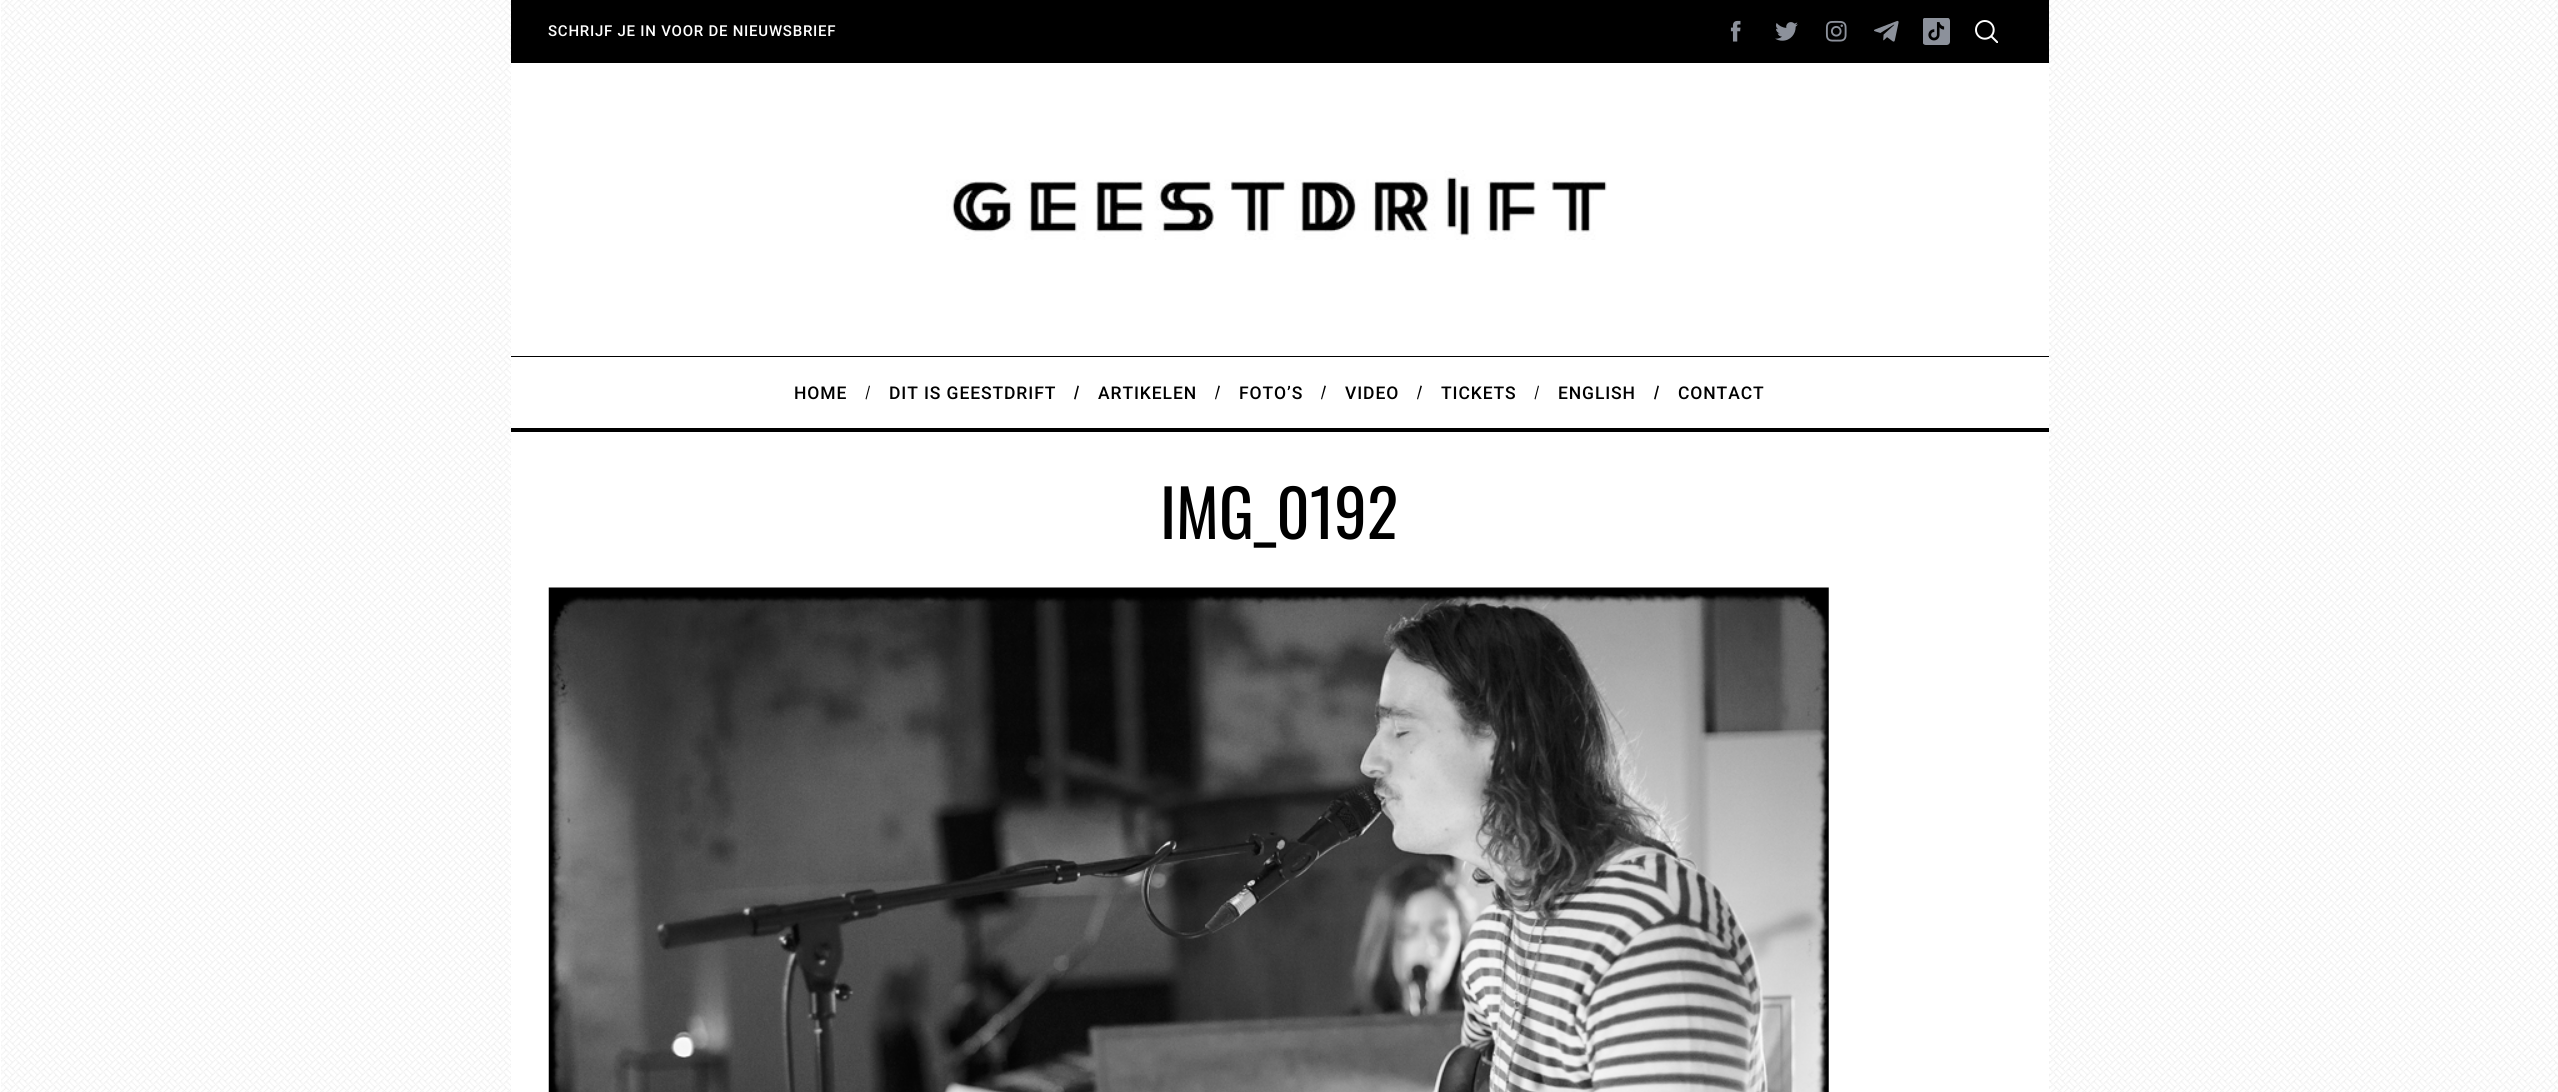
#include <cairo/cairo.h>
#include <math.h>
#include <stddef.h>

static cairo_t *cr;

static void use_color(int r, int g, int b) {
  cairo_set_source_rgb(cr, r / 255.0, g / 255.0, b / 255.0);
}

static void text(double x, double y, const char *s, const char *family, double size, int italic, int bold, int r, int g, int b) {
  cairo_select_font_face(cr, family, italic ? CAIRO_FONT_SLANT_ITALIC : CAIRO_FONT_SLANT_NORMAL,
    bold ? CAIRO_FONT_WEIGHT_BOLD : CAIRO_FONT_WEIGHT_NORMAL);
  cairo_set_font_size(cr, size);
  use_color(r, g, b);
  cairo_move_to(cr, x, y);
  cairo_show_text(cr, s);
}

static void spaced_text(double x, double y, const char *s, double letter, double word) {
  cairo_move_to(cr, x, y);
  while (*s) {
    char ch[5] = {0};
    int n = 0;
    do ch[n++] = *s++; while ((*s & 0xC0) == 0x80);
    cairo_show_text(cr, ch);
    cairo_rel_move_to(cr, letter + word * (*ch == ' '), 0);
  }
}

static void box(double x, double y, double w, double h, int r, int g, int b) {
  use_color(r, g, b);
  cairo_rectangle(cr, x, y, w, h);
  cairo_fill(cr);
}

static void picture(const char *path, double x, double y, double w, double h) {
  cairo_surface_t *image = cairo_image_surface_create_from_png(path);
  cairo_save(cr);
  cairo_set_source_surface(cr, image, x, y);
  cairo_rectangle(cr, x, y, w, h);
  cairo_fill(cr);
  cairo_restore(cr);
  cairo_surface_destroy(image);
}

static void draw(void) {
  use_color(255, 255, 255);
  cairo_paint(cr);
  picture("img_01.png", 1, 0, 2557, 1092);
  box(511, 0, 1538, 63, 0, 0, 0);
  picture("img_02.png", 1730, 20, 11, 22);
  picture("img_03.png", 1775, 22, 23, 19);
  picture("img_04.png", 1825, 20, 22, 22);
  picture("img_05.png", 1874, 20, 25, 22);
  picture("img_06.png", 1923, 18, 27, 27);
  picture("img_07.png", 1975, 20, 23, 23);
  box(511, 63, 1538, 1029, 255, 255, 255);
  picture("img_08.png", 946, 170, 661, 70);
  box(511, 356, 1538, 1, 0, 0, 0);
  box(511, 428, 1538, 4, 0, 0, 0);
  cairo_new_path(cr);
  cairo_move_to(cr, 869, 385.5);
  cairo_line_to(cr, 870, 386);
  cairo_line_to(cr, 866.5, 399.5);
  cairo_line_to(cr, 865.5, 399);
  cairo_close_path(cr);
  cairo_fill(cr);
  cairo_new_path(cr);
  cairo_move_to(cr, 1077.5, 385.5);
  cairo_line_to(cr, 1079, 386);
  cairo_line_to(cr, 1075.5, 399.5);
  cairo_line_to(cr, 1074, 399);
  cairo_close_path(cr);
  cairo_fill(cr);
  cairo_new_path(cr);
  cairo_move_to(cr, 1218.5, 385.5);
  cairo_line_to(cr, 1220, 386);
  cairo_line_to(cr, 1216, 399.5);
  cairo_line_to(cr, 1215, 399);
  cairo_close_path(cr);
  cairo_fill(cr);
  cairo_new_path(cr);
  cairo_move_to(cr, 1324.5, 385.5);
  cairo_line_to(cr, 1326, 386);
  cairo_line_to(cr, 1322, 399.5);
  cairo_line_to(cr, 1321, 399);
  cairo_close_path(cr);
  cairo_fill(cr);
  cairo_new_path(cr);
  cairo_move_to(cr, 1420.5, 385.5);
  cairo_line_to(cr, 1422, 386);
  cairo_line_to(cr, 1418, 399.5);
  cairo_line_to(cr, 1417, 399);
  cairo_close_path(cr);
  cairo_fill(cr);
  cairo_new_path(cr);
  cairo_move_to(cr, 1538, 385.5);
  cairo_line_to(cr, 1539, 386);
  cairo_line_to(cr, 1535.5, 399.5);
  cairo_line_to(cr, 1534.5, 399);
  cairo_close_path(cr);
  cairo_fill(cr);
  cairo_new_path(cr);
  cairo_move_to(cr, 1657.5, 385.5);
  cairo_line_to(cr, 1659, 386);
  cairo_line_to(cr, 1655.5, 399.5);
  cairo_line_to(cr, 1654, 399);
  cairo_close_path(cr);
  cairo_fill(cr);
  picture("img_09.png", 548, 587, 1281, 505);
  cairo_select_font_face(cr, "Roboto Medium", CAIRO_FONT_SLANT_NORMAL, CAIRO_FONT_WEIGHT_NORMAL);
  cairo_set_font_size(cr, 15);
  use_color(255, 255, 255);
  spaced_text(548, 36, "SCHRIJF JE IN VOOR DE NIEUWSBRIEF", 0.75, 0);
  cairo_set_font_size(cr, 17.5);
  use_color(0, 0, 0);
  spaced_text(794, 399, "HOME", 0.9, 0);
  spaced_text(889, 399, "DIT IS GEESTDRIFT", 0.9, 0);
  spaced_text(1098, 399, "ARTIKELEN", 0.9, 0);
  spaced_text(1239, 399, "FOTO’S", 0.9, 0);
  spaced_text(1345, 399, "VIDEO", 0.9, 0);
  spaced_text(1441, 399, "TICKETS", 0.9, 0);
  spaced_text(1558, 399, "ENGLISH", 0.9, 0);
  spaced_text(1678, 399, "CONTACT", 0.9, 0);
  text(1160, 539, "IMG_0192", "Oswald", 65, 0, 0, 0, 0, 0);
}

int main(void) {
  cairo_surface_t *surface = cairo_image_surface_create(CAIRO_FORMAT_RGB24, 2558, 1092);
  cr = cairo_create(surface);
  cairo_font_options_t *options = cairo_font_options_create();
  cairo_font_options_set_hint_metrics(options, CAIRO_HINT_METRICS_OFF);
  cairo_font_options_set_hint_style(options, CAIRO_HINT_STYLE_NONE);
  cairo_set_font_options(cr, options);
  cairo_set_miter_limit(cr, 4);
  draw();
  cairo_surface_write_to_png(surface, "out.png");
  cairo_font_options_destroy(options);
  cairo_destroy(cr);
  cairo_surface_destroy(surface);
  return 0;
}
